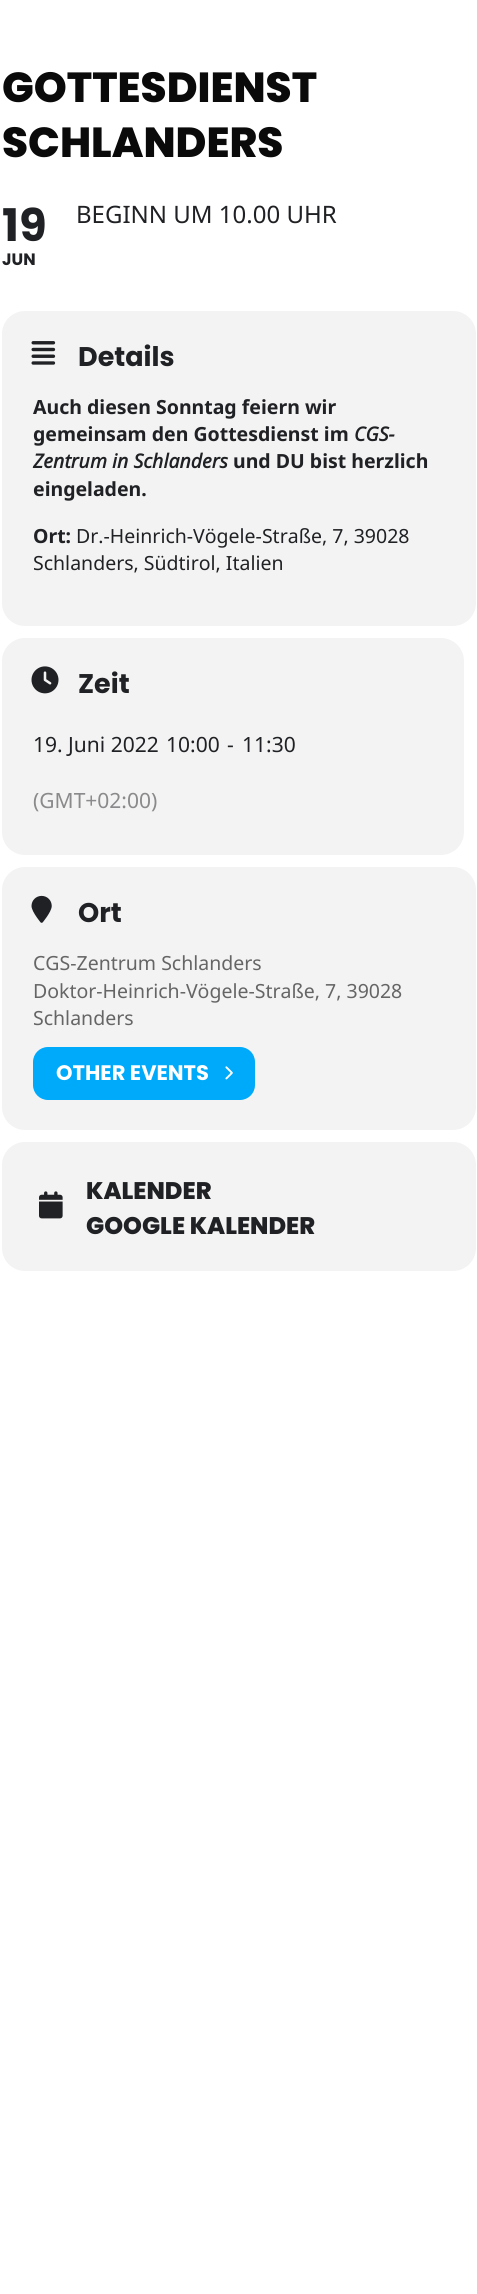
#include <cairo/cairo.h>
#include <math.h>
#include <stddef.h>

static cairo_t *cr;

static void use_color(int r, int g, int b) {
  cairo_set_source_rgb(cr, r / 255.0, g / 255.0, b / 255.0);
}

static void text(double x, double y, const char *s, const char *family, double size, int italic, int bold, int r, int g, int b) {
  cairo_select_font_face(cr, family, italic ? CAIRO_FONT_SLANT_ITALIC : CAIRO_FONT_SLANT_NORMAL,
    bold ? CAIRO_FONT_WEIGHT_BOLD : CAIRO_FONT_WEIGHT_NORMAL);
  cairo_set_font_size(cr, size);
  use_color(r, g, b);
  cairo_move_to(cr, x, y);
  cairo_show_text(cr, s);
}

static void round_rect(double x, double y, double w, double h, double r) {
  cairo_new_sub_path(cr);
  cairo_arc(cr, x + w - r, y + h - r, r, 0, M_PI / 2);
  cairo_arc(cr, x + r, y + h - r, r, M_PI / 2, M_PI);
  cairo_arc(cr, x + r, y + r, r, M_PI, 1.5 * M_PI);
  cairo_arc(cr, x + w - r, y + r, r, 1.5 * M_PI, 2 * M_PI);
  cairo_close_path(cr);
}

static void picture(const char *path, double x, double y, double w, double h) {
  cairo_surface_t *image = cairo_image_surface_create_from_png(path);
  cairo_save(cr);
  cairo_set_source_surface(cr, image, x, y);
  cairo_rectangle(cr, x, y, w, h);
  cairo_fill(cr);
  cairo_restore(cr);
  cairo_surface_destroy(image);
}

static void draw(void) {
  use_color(255, 255, 255);
  cairo_paint(cr);
  use_color(243, 243, 243);
  round_rect(2, 311, 474, 315, 23);
  cairo_fill(cr);
  picture("img_01.png", 31, 341, 25, 24);
  round_rect(2, 638, 462, 217, 23);
  cairo_fill(cr);
  picture("img_02.png", 31, 666, 28, 28);
  round_rect(2, 867, 474, 263, 23);
  cairo_fill(cr);
  picture("img_03.png", 31, 895, 21, 28);
  use_color(0, 170, 251);
  round_rect(33, 1047, 222, 53, 15);
  cairo_fill(cr);
  picture("img_04.png", 225, 1066, 8, 14);
  use_color(243, 243, 243);
  round_rect(2, 1142, 474, 129, 23);
  cairo_fill(cr);
  picture("img_05.png", 39, 1191, 24, 28);
  text(2, 102, "GOTTESDIENST", "Poppins ExtraBold", 42, 0, 0, 10, 10, 10);
  text(2, 157, "SCHLANDERS", "Poppins ExtraBold", 42, 0, 0, 10, 10, 10);
  text(2, 241, "19", "Poppins", 45, 0, 1, 32, 33, 36);
  text(2, 265, "JUN", "Poppins", 16.5, 0, 1, 32, 33, 36);
  text(76, 223, "BEGINN UM 10.00 UHR", "Noto Sans", 24, 0, 0, 32, 33, 36);
  text(78, 366, "Details", "Poppins", 27, 0, 1, 32, 33, 36);
  text(33, 414, "Auch diesen Sonntag feiern wir", "Noto Sans", 19.5, 0, 1, 32, 33, 36);
  text(33, 441, "gemeinsam den Gottesdienst im", "Noto Sans", 19.5, 0, 1, 32, 33, 36);
  text(354, 441, "CGS-", "Noto Sans", 19.5, 1, 1, 32, 33, 36);
  text(33, 468, "Zentrum in Schlanders", "Noto Sans", 19.5, 1, 1, 32, 33, 36);
  text(233, 468, "und DU bist herzlich", "Noto Sans", 19.5, 0, 1, 32, 33, 36);
  text(33, 496, "eingeladen.", "Noto Sans", 19.5, 0, 1, 32, 33, 36);
  text(33, 543, "Ort:", "Noto Sans", 19.5, 0, 1, 32, 33, 36);
  text(76, 543, "Dr.-Heinrich-Vögele-Straße, 7, 39028", "Noto Sans", 19.5, 0, 0, 32, 33, 36);
  text(33, 570, "Schlanders, Südtirol, Italien", "Noto Sans", 19.5, 0, 0, 32, 33, 36);
  text(78, 693, "Zeit", "Poppins", 27, 0, 1, 32, 33, 36);
  text(33, 752, "19. Juni 2022", "Noto Sans", 21, 0, 0, 32, 33, 36);
  text(166, 752, "10:00", "Noto Sans", 21, 0, 0, 32, 33, 36);
  text(227, 752, "-", "Noto Sans", 21, 0, 0, 32, 33, 36);
  text(242, 752, "11:30", "Noto Sans", 21, 0, 0, 32, 33, 36);
  text(33, 808, "(GMT+02:00)", "Noto Sans", 21, 0, 0, 138, 138, 140);
  text(78, 922, "Ort", "Poppins", 27, 0, 1, 32, 33, 36);
  text(33, 970, "CGS-Zentrum Schlanders", "Noto Sans", 19.5, 0, 0, 101, 101, 101);
  text(33, 998, "Doktor-Heinrich-Vögele-Straße, 7, 39028", "Noto Sans", 19.5, 0, 0, 101, 101, 101);
  text(33, 1025, "Schlanders", "Noto Sans", 19.5, 0, 0, 101, 101, 101);
  text(56, 1080, "OTHER EVENTS", "Poppins", 21, 0, 1, 255, 255, 255);
  text(86, 1199, "KALENDER", "Poppins ExtraBold", 24, 0, 0, 32, 33, 36);
  text(86, 1234, "GOOGLE KALENDER", "Poppins ExtraBold", 24, 0, 0, 32, 33, 36);
}

int main(void) {
  cairo_surface_t *surface = cairo_image_surface_create(CAIRO_FORMAT_RGB24, 477, 2294);
  cr = cairo_create(surface);
  cairo_font_options_t *options = cairo_font_options_create();
  cairo_font_options_set_hint_metrics(options, CAIRO_HINT_METRICS_OFF);
  cairo_font_options_set_hint_style(options, CAIRO_HINT_STYLE_NONE);
  cairo_set_font_options(cr, options);
  cairo_set_miter_limit(cr, 4);
  draw();
  cairo_surface_write_to_png(surface, "out.png");
  cairo_font_options_destroy(options);
  cairo_destroy(cr);
  cairo_surface_destroy(surface);
  return 0;
}
